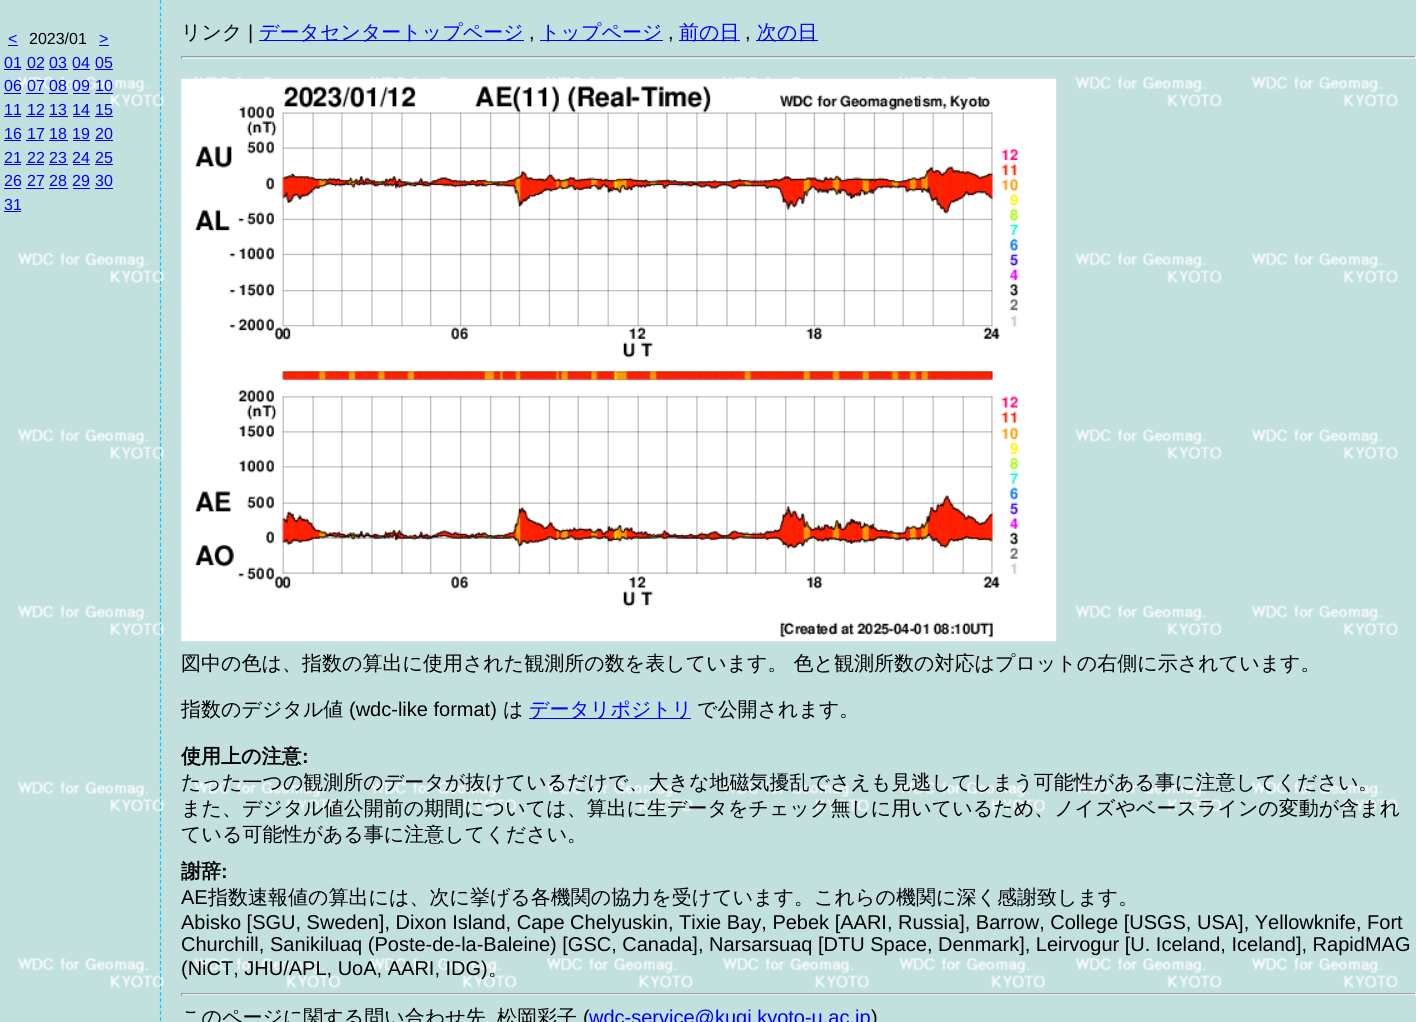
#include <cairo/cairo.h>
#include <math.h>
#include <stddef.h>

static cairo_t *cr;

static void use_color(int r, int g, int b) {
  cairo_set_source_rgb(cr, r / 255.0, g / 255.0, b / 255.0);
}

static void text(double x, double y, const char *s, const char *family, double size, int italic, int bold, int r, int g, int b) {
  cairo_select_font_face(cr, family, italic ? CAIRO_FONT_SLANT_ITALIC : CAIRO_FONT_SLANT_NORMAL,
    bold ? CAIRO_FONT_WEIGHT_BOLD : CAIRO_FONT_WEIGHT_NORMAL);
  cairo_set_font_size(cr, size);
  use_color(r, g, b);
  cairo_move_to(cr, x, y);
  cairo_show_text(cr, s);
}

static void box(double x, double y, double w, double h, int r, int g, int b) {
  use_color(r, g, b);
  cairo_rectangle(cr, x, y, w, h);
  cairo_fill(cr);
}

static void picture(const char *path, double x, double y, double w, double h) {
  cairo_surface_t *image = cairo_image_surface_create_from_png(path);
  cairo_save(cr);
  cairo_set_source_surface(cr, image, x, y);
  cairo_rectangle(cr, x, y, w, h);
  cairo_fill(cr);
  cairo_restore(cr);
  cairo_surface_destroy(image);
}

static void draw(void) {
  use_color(255, 255, 255);
  cairo_paint(cr);
  picture("img_01.png", 0, 0, 1416, 1022);
  box(8, 45, 10, 1, 0, 0, 255);
  box(99, 45, 10, 1, 0, 0, 255);
  box(4, 69, 17, 1, 0, 0, 255);
  box(26, 69, 18, 1, 0, 0, 255);
  box(49, 69, 19, 1, 0, 0, 255);
  box(73, 69, 17, 1, 0, 0, 255);
  box(95, 69, 18, 1, 0, 0, 255);
  box(4, 93, 17, 1, 0, 0, 255);
  box(26, 93, 18, 1, 0, 0, 255);
  box(49, 93, 19, 1, 0, 0, 255);
  box(73, 93, 17, 1, 0, 0, 255);
  box(95, 93, 18, 1, 0, 0, 255);
  box(4, 116, 17, 1, 0, 0, 255);
  box(26, 116, 18, 1, 0, 0, 255);
  box(49, 116, 19, 1, 0, 0, 255);
  box(73, 116, 17, 1, 0, 0, 255);
  box(95, 116, 18, 1, 0, 0, 255);
  box(4, 140, 17, 1, 0, 0, 255);
  box(26, 140, 18, 1, 0, 0, 255);
  box(49, 140, 19, 1, 0, 0, 255);
  box(73, 140, 17, 1, 0, 0, 255);
  box(95, 140, 18, 1, 0, 0, 255);
  box(4, 164, 17, 1, 0, 0, 255);
  box(26, 164, 18, 1, 0, 0, 255);
  box(49, 164, 19, 1, 0, 0, 255);
  box(73, 164, 17, 1, 0, 0, 255);
  box(95, 164, 18, 1, 0, 0, 255);
  box(4, 188, 17, 1, 0, 0, 255);
  box(26, 188, 18, 1, 0, 0, 255);
  box(49, 188, 19, 1, 0, 0, 255);
  box(73, 188, 17, 1, 0, 0, 255);
  box(95, 188, 18, 1, 0, 0, 255);
  box(4, 211, 17, 1, 0, 0, 255);
  cairo_new_path(cr);
  cairo_move_to(cr, 160.5, 0);
  cairo_line_to(cr, 160.5, 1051);
  use_color(0, 204, 255);
  cairo_set_line_width(cr, 1.2);
  cairo_set_dash(cr, (double[]){3.75, 2.49}, 2, 0);
  cairo_stroke(cr);
  box(259, 40, 265, 1, 0, 0, 255);
  box(540, 40, 123, 1, 0, 0, 255);
  box(679, 40, 61, 1, 0, 0, 255);
  box(756, 40, 62, 1, 0, 0, 255);
  box(181, 56, 1235, 1, 159, 159, 159);
  box(1415, 56, 1, 3, 238, 238, 238);
  box(181, 58, 1235, 1, 238, 238, 238);
  box(181, 56, 1, 3, 159, 159, 159);
  picture("img_02.png", 181, 78, 876, 564);
  box(529, 718, 162, 1, 0, 0, 255);
  box(181, 993, 1235, 1, 159, 159, 159);
  box(1415, 993, 1, 3, 238, 238, 238);
  box(181, 994, 1235, 1, 238, 238, 238);
  box(181, 993, 1, 3, 159, 159, 159);
  text(8, 44, "<", "Liberation Sans", 16, 0, 0, 0, 0, 255);
  text(29, 44, "2023/01", "Liberation Sans", 16, 0, 0, 0, 0, 0);
  text(99, 44, ">", "Liberation Sans", 16, 0, 0, 0, 0, 255);
  text(4, 68, "01", "Liberation Sans", 16, 0, 0, 0, 0, 255);
  text(27, 68, "02", "Liberation Sans", 16, 0, 0, 0, 0, 255);
  text(49, 68, "03", "Liberation Sans", 16, 0, 0, 0, 0, 255);
  text(72, 68, "04", "Liberation Sans", 16, 0, 0, 0, 0, 255);
  text(95, 68, "05", "Liberation Sans", 16, 0, 0, 0, 0, 255);
  text(4, 91, "06", "Liberation Sans", 16, 0, 0, 0, 0, 255);
  text(27, 91, "07", "Liberation Sans", 16, 0, 0, 0, 0, 255);
  text(49, 91, "08", "Liberation Sans", 16, 0, 0, 0, 0, 255);
  text(72, 91, "09", "Liberation Sans", 16, 0, 0, 0, 0, 255);
  text(95, 91, "10", "Liberation Sans", 16, 0, 0, 0, 0, 255);
  text(4, 115, "11", "Liberation Sans", 16, 0, 0, 0, 0, 255);
  text(27, 115, "12", "Liberation Sans", 16, 0, 0, 0, 0, 255);
  text(49, 115, "13", "Liberation Sans", 16, 0, 0, 0, 0, 255);
  text(72, 115, "14", "Liberation Sans", 16, 0, 0, 0, 0, 255);
  text(95, 115, "15", "Liberation Sans", 16, 0, 0, 0, 0, 255);
  text(4, 139, "16", "Liberation Sans", 16, 0, 0, 0, 0, 255);
  text(27, 139, "17", "Liberation Sans", 16, 0, 0, 0, 0, 255);
  text(49, 139, "18", "Liberation Sans", 16, 0, 0, 0, 0, 255);
  text(72, 139, "19", "Liberation Sans", 16, 0, 0, 0, 0, 255);
  text(95, 139, "20", "Liberation Sans", 16, 0, 0, 0, 0, 255);
  text(4, 163, "21", "Liberation Sans", 16, 0, 0, 0, 0, 255);
  text(27, 163, "22", "Liberation Sans", 16, 0, 0, 0, 0, 255);
  text(49, 163, "23", "Liberation Sans", 16, 0, 0, 0, 0, 255);
  text(72, 163, "24", "Liberation Sans", 16, 0, 0, 0, 0, 255);
  text(95, 163, "25", "Liberation Sans", 16, 0, 0, 0, 0, 255);
  text(4, 186, "26", "Liberation Sans", 16, 0, 0, 0, 0, 255);
  text(27, 186, "27", "Liberation Sans", 16, 0, 0, 0, 0, 255);
  text(49, 186, "28", "Liberation Sans", 16, 0, 0, 0, 0, 255);
  text(72, 186, "29", "Liberation Sans", 16, 0, 0, 0, 0, 255);
  text(95, 186, "30", "Liberation Sans", 16, 0, 0, 0, 0, 255);
  text(4, 210, "31", "Liberation Sans", 16, 0, 0, 0, 0, 255);
  text(181, 39, "リンク", "WenQuanYi Zen Hei Medium", 20, 0, 0, 0, 0, 0);
  text(248, 39, "|", "Liberation Sans", 20, 0, 0, 0, 0, 0);
  text(259, 39, "データセンタートップページ", "WenQuanYi Zen Hei Medium", 20, 0, 0, 0, 0, 255);
  text(529, 39, ",", "Liberation Sans", 20, 0, 0, 0, 0, 0);
  text(540, 39, "トップページ", "WenQuanYi Zen Hei Medium", 20, 0, 0, 0, 0, 255);
  text(668, 39, ",", "Liberation Sans", 20, 0, 0, 0, 0, 0);
  text(679, 39, "前の日", "WenQuanYi Zen Hei Medium", 20, 0, 0, 0, 0, 255);
  text(745, 39, ",", "Liberation Sans", 20, 0, 0, 0, 0, 0);
  text(757, 39, "次の日", "WenQuanYi Zen Hei Medium", 20, 0, 0, 0, 0, 255);
  text(181, 670, "図中の色は、指数の算出に使用された観測所の数を表しています。 色と観測所数の対応はプロットの右側に示されています。", "WenQuanYi Zen Hei Medium", 20, 0, 0, 0, 0, 0);
  text(181, 716, "指数のデジタル値", "WenQuanYi Zen Hei Medium", 20, 0, 0, 0, 0, 0);
  text(349, 716, "(wdc-like format)", "Liberation Sans", 20, 0, 0, 0, 0, 0);
  text(503, 716, "は", "WenQuanYi Zen Hei Medium", 20, 0, 0, 0, 0, 0);
  text(529, 716, "データリポジトリ", "WenQuanYi Zen Hei Medium", 20, 0, 0, 0, 0, 255);
  text(697, 716, "で公開されます。", "WenQuanYi Zen Hei Medium", 20, 0, 0, 0, 0, 0);
  text(181, 763, "使用上の注意", "WenQuanYi Zen Hei", 20, 0, 1, 0, 0, 0);
  text(302, 763, ":", "Liberation Sans", 20, 0, 1, 0, 0, 0);
  text(181, 789, "たった一つの観測所のデータが抜けているだけで、大きな地磁気擾乱でさえも見逃してしまう可能性がある事に注意してください。", "WenQuanYi Zen Hei Medium", 20, 0, 0, 0, 0, 0);
  text(181, 815, "また、デジタル値公開前の期間については、算出に生データをチェック無しに用いているため、ノイズやベースラインの変動が含まれ", "WenQuanYi Zen Hei Medium", 20, 0, 0, 0, 0, 0);
  text(181, 841, "ている可能性がある事に注意してください。", "WenQuanYi Zen Hei Medium", 20, 0, 0, 0, 0, 0);
  text(181, 878, "謝辞", "WenQuanYi Zen Hei", 20, 0, 1, 0, 0, 0);
  text(221, 878, ":", "Liberation Sans", 20, 0, 1, 0, 0, 0);
  text(181, 904, "AE", "Liberation Sans", 20, 0, 0, 0, 0, 0);
  text(208, 904, "指数速報値の算出には、次に挙げる各機関の協力を受けています。これらの機関に深く感謝致します。", "WenQuanYi Zen Hei Medium", 20, 0, 0, 0, 0, 0);
  text(181, 929, "Abisko [SGU, Sweden], Dixon Island, Cape Chelyuskin, Tixie Bay, Pebek [AARI, Russia], Barrow, College [USGS, USA], Yellowknife, Fort", "Liberation Sans", 20, 0, 0, 0, 0, 0);
  text(181, 951, "Churchill, Sanikiluaq (Poste-de-la-Baleine) [GSC, Canada], Narsarsuaq [DTU Space, Denmark], Leirvogur [U. Iceland, Iceland], RapidMAG", "Liberation Sans", 20, 0, 0, 0, 0, 0);
  text(181, 975, "(NiCT, JHU/APL, UoA, AARI, IDG)", "Liberation Sans", 20, 0, 0, 0, 0, 0);
  text(488, 975, "。", "WenQuanYi Zen Hei Medium", 20, 0, 0, 0, 0, 0);
  text(181, 1024, "このページに関する問い合わせ先", "WenQuanYi Zen Hei Medium", 20, 0, 0, 0, 0, 0);
  text(497, 1024, "松岡彩子", "WenQuanYi Zen Hei Medium", 20, 0, 0, 0, 0, 0);
  text(583, 1024, "(", "Liberation Sans", 20, 0, 0, 0, 0, 0);
  text(589, 1024, "wdc-service@kugi.kyoto-u.ac.jp", "Liberation Sans", 20, 0, 0, 0, 0, 255);
  text(871, 1024, ")", "Liberation Sans", 20, 0, 0, 0, 0, 0);
}

int main(void) {
  cairo_surface_t *surface = cairo_image_surface_create(CAIRO_FORMAT_RGB24, 1416, 1022);
  cr = cairo_create(surface);
  cairo_font_options_t *options = cairo_font_options_create();
  cairo_font_options_set_hint_metrics(options, CAIRO_HINT_METRICS_OFF);
  cairo_font_options_set_hint_style(options, CAIRO_HINT_STYLE_NONE);
  cairo_set_font_options(cr, options);
  cairo_set_miter_limit(cr, 4);
  draw();
  cairo_surface_write_to_png(surface, "out.png");
  cairo_font_options_destroy(options);
  cairo_destroy(cr);
  cairo_surface_destroy(surface);
  return 0;
}
